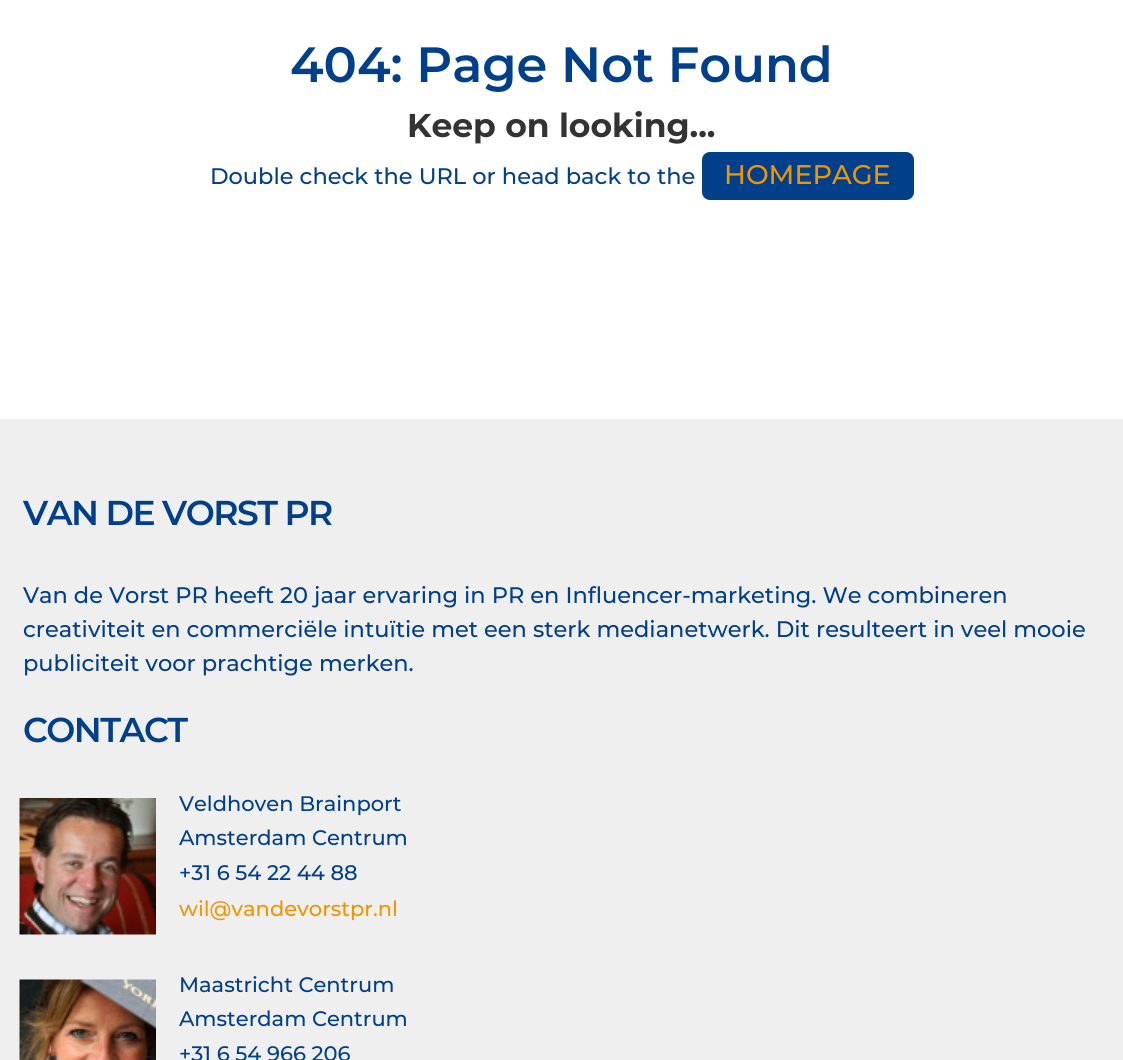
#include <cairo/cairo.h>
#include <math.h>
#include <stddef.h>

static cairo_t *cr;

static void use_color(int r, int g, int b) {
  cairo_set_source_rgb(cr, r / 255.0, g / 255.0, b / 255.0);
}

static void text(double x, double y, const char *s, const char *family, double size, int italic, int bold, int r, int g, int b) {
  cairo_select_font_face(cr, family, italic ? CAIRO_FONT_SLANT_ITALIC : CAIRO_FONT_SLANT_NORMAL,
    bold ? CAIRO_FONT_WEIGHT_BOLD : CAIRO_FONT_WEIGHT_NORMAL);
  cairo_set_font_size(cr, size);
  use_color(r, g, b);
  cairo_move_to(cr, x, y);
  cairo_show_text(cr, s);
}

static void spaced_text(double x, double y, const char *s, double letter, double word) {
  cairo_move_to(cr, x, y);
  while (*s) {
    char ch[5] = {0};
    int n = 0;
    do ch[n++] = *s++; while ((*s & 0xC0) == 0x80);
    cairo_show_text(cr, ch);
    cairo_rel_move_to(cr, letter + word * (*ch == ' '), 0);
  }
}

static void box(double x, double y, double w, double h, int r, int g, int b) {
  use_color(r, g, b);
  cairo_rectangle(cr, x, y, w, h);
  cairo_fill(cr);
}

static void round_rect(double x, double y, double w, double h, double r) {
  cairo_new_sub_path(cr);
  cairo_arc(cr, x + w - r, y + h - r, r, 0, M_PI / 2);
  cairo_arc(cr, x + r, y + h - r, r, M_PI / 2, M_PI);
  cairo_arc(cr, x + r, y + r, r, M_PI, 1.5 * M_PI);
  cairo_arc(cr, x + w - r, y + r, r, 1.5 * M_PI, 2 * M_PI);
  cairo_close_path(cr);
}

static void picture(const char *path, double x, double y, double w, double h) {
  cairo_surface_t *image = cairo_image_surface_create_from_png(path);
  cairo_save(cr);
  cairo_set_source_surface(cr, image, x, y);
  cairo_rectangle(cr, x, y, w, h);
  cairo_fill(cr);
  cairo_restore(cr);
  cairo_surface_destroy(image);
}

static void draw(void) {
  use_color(255, 255, 255);
  cairo_paint(cr);
  use_color(0, 63, 138);
  round_rect(702, 152, 212, 48, 8);
  cairo_fill(cr);
  box(0, 419, 1123, 641, 239, 239, 239);
  picture("img_01.png", 19, 798, 137, 137);
  picture("img_02.png", 19, 979, 137, 81);
  text(290, 82, "404: Page Not Found", "Montserrat SemiBold", 49.5, 0, 0, 0, 63, 138);
  text(407, 137, "Keep on looking...", "Montserrat", 33, 0, 1, 51, 51, 51);
  text(210, 184, "Double check the URL or head back to the", "Montserrat Medium", 22.5, 0, 0, 0, 63, 138);
  text(724, 184, "HOMEPAGE", "Montserrat Medium", 27, 0, 0, 242, 147, 0);
  cairo_select_font_face(cr, "Montserrat SemiBold", CAIRO_FONT_SLANT_NORMAL, CAIRO_FONT_WEIGHT_NORMAL);
  cairo_set_font_size(cr, 34.5);
  use_color(0, 63, 138);
  spaced_text(23, 525, "VAN DE VORST PR", -1.5, 0);
  text(23, 603, "Van de Vorst PR heeft 20 jaar ervaring in PR en Influencer-marketing. We combineren", "Montserrat Medium", 22.5, 0, 0, 0, 63, 138);
  text(23, 637, "creativiteit en commerciële intuïtie met een sterk medianetwerk. Dit resulteert in veel mooie", "Montserrat Medium", 22.5, 0, 0, 0, 63, 138);
  text(23, 671, "publiciteit voor prachtige merken.", "Montserrat Medium", 22.5, 0, 0, 0, 63, 138);
  cairo_select_font_face(cr, "Montserrat SemiBold", CAIRO_FONT_SLANT_NORMAL, CAIRO_FONT_WEIGHT_NORMAL);
  cairo_set_font_size(cr, 34.5);
  spaced_text(23, 742, "CONTACT", -1.5, 0);
  text(179, 811, "Veldhoven Brainport", "Montserrat Medium", 21, 0, 0, 0, 63, 138);
  text(179, 845, "Amsterdam Centrum", "Montserrat Medium", 21, 0, 0, 0, 63, 138);
  text(179, 880, "+31 6 54 22 44 88", "Montserrat Medium", 21, 0, 0, 0, 63, 138);
  text(179, 916, "wil@vandevorstpr.nl", "Montserrat Medium", 21, 0, 0, 242, 147, 0);
  text(179, 992, "Maastricht Centrum", "Montserrat Medium", 21, 0, 0, 0, 63, 138);
  text(179, 1026, "Amsterdam Centrum", "Montserrat Medium", 21, 0, 0, 0, 63, 138);
  text(179, 1061, "+31 6 54 966 206", "Montserrat Medium", 21, 0, 0, 0, 63, 138);
}

int main(void) {
  cairo_surface_t *surface = cairo_image_surface_create(CAIRO_FORMAT_RGB24, 1123, 1060);
  cr = cairo_create(surface);
  cairo_font_options_t *options = cairo_font_options_create();
  cairo_font_options_set_hint_metrics(options, CAIRO_HINT_METRICS_OFF);
  cairo_font_options_set_hint_style(options, CAIRO_HINT_STYLE_NONE);
  cairo_set_font_options(cr, options);
  cairo_set_miter_limit(cr, 4);
  draw();
  cairo_surface_write_to_png(surface, "out.png");
  cairo_font_options_destroy(options);
  cairo_destroy(cr);
  cairo_surface_destroy(surface);
  return 0;
}
